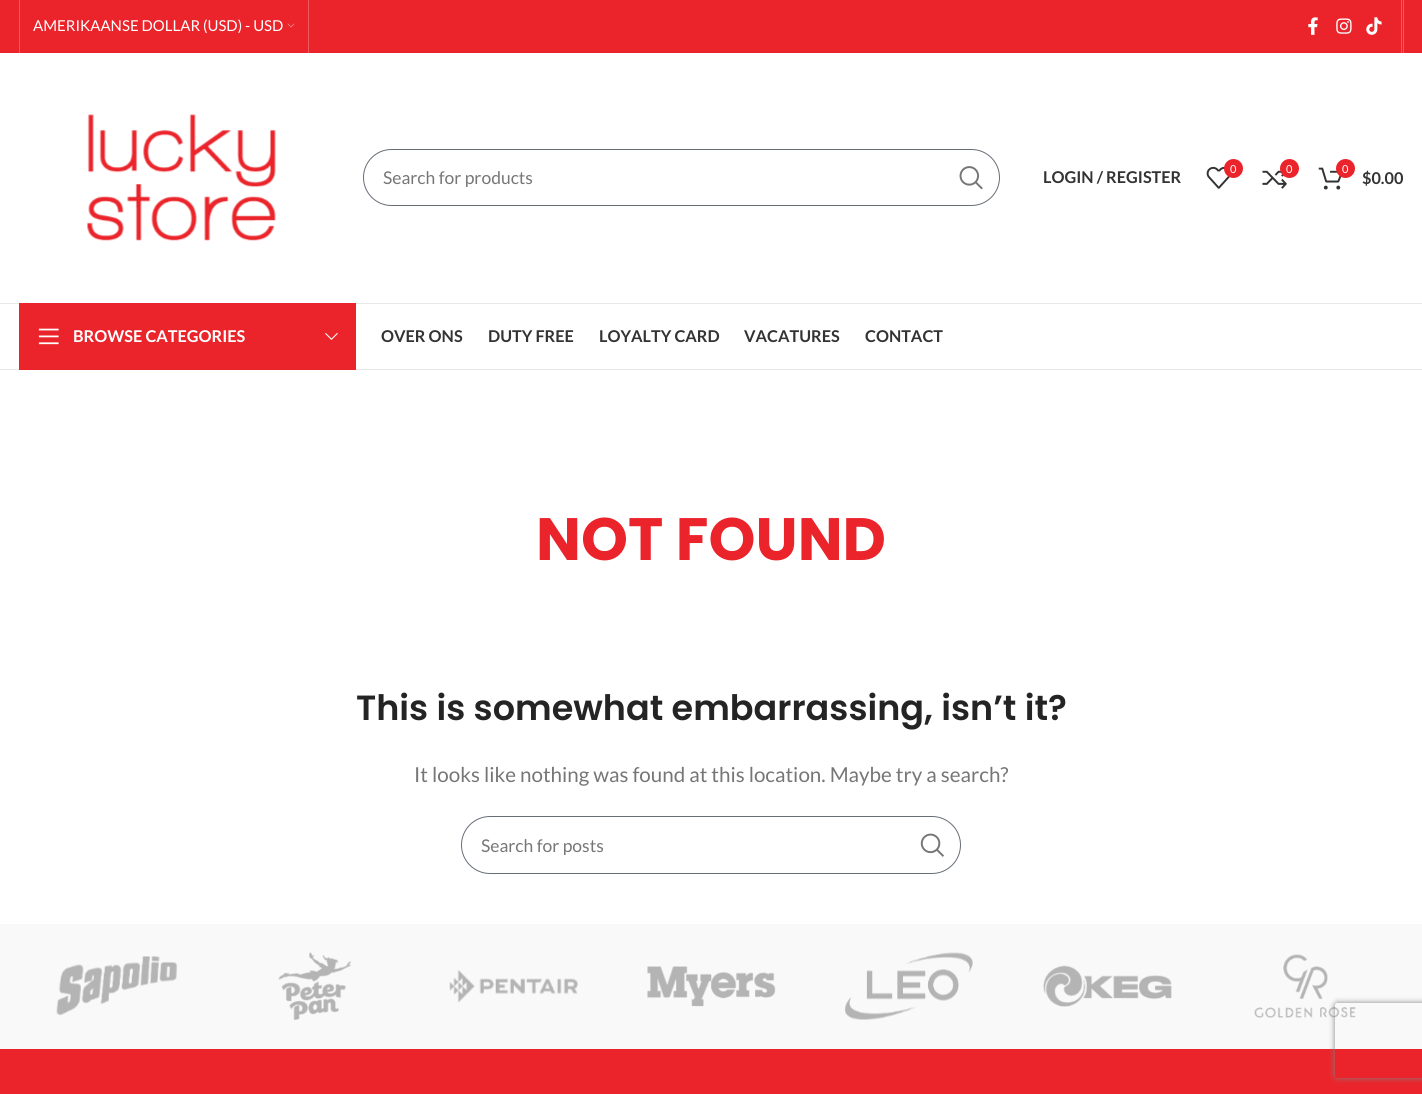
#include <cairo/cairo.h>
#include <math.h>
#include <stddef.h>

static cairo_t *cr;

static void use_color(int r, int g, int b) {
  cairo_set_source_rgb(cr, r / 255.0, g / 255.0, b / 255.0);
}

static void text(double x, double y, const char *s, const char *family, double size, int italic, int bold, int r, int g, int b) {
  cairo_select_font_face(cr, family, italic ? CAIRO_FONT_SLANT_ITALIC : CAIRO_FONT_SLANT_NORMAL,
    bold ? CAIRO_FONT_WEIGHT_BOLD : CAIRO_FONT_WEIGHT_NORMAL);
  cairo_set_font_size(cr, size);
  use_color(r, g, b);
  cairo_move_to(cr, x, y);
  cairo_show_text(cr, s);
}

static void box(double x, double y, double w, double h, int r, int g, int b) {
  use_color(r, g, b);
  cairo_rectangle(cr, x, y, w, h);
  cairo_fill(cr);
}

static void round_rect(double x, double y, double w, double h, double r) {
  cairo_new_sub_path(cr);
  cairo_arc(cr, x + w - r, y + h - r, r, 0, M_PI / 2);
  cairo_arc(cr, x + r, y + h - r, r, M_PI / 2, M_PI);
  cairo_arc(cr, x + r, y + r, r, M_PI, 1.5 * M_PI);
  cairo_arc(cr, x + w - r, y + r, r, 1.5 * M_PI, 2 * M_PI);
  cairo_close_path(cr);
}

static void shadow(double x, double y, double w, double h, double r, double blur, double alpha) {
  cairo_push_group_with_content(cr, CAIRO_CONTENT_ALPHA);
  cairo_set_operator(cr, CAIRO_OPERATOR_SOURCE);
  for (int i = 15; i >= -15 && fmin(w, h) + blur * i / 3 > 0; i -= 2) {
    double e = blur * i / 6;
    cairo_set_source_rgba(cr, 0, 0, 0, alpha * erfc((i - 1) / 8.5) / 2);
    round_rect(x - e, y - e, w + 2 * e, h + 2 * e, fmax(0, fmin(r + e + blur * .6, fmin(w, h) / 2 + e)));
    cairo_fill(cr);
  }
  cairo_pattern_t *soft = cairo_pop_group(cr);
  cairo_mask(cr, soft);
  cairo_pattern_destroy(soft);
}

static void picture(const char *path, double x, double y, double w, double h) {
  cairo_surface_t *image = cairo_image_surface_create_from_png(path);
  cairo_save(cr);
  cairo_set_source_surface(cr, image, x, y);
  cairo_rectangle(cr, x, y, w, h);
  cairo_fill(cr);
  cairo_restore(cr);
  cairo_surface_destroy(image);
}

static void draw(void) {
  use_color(255, 255, 255);
  cairo_paint(cr);
  box(0, 0, 1422, 53, 234, 36, 42);
  box(19, 0, 1, 53, 239, 91, 95);
  picture("img_01.png", 287, 23, 8, 5);
  box(308, 0, 1, 53, 239, 91, 95);
  picture("img_02.png", 1308, 17, 10, 18);
  picture("img_03.png", 1336, 18, 16, 16);
  picture("img_04.png", 1366, 17, 16, 18);
  box(1401, 0, 1, 53, 239, 91, 95);
  box(1403, 0, 1, 53, 239, 91, 95);
  box(0, 303, 1422, 1, 232, 232, 232);
  picture("img_05.png", 87, 114, 189, 127);
  round_rect(363.5, 149.5, 636, 56, 28);
  use_color(104, 110, 119);
  cairo_set_line_width(cr, 1);
  cairo_stroke(cr);
  picture("img_06.png", 959, 166, 24, 24);
  picture("img_07.png", 1206, 166, 24, 23);
  use_color(234, 36, 42);
  cairo_arc(cr, 1233.5, 168.5, 9.5, 0, 2 * M_PI);
  cairo_fill(cr);
  picture("img_08.png", 1262, 170, 25, 19);
  cairo_arc(cr, 1289.5, 168.5, 9.5, 0, 2 * M_PI);
  cairo_fill(cr);
  picture("img_09.png", 1318, 167, 24, 23);
  cairo_arc(cr, 1345.5, 168.5, 9.5, 0, 2 * M_PI);
  cairo_fill(cr);
  box(0, 369, 1422, 1, 232, 232, 232);
  box(19, 303, 337, 67, 234, 36, 42);
  picture("img_10.png", 38, 328, 21, 17);
  picture("img_11.png", 325, 333, 13, 7);
  round_rect(461.5, 816.5, 499, 57, 28.5);
  use_color(104, 110, 119);
  cairo_stroke(cr);
  picture("img_12.png", 920, 833, 24, 24);
  box(0, 924, 1422, 125, 249, 249, 249);
  picture("img_13.png", 56, 956, 122, 60);
  picture("img_14.png", 278, 952, 74, 69);
  picture("img_15.png", 449, 970, 129, 33);
  picture("img_16.png", 647, 966, 129, 41);
  picture("img_17.png", 845, 952, 128, 68);
  picture("img_18.png", 1043, 965, 129, 42);
  box(0, 1049, 1422, 45, 234, 36, 42);
  cairo_save(cr);
  cairo_set_fill_rule(cr, CAIRO_FILL_RULE_EVEN_ODD);
  cairo_new_path(cr);
  cairo_move_to(cr, 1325, 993);
  cairo_line_to(cr, 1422, 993);
  cairo_line_to(cr, 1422, 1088);
  cairo_line_to(cr, 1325, 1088);
  cairo_close_path(cr);
  cairo_move_to(cr, 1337.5, 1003);
  cairo_line_to(cr, 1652.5, 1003);
  cairo_curve_to(cr, 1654, 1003, 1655, 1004, 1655, 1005.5);
  cairo_line_to(cr, 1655, 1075.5);
  cairo_curve_to(cr, 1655, 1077, 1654, 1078, 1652.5, 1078);
  cairo_line_to(cr, 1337.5, 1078);
  cairo_curve_to(cr, 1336, 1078, 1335, 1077, 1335, 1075.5);
  cairo_line_to(cr, 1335, 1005.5);
  cairo_curve_to(cr, 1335, 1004, 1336, 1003, 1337.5, 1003);
  cairo_close_path(cr);
  cairo_clip(cr);
  use_color(128, 128, 128);
  shadow(1335, 1003, 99, 75, 2.5, 3, 1);
  cairo_restore(cr);
  picture("img_19.png", 1254, 954, 102, 64);
  text(33, 31, "AMERIKAANSE DOLLAR (USD) - USD", "Lato", 15, 0, 0, 255, 255, 255);
  text(383, 184, "Search for products", "Lato", 17.5, 0, 0, 118, 118, 118);
  text(1043, 183, "LOGIN / REGISTER", "Lato", 16.25, 0, 1, 51, 51, 51);
  text(1230, 173, "0", "Lato", 11, 0, 0, 255, 255, 255);
  text(1286, 173, "0", "Lato", 11, 0, 0, 255, 255, 255);
  text(1342, 173, "0", "Lato", 11, 0, 0, 255, 255, 255);
  text(1362, 184, "$0.00", "Lato", 16.25, 0, 1, 51, 51, 51);
  text(73, 342, "BROWSE CATEGORIES", "Lato", 16.25, 0, 1, 255, 255, 255);
  text(381, 342, "OVER ONS", "Lato", 16.25, 0, 1, 51, 51, 51);
  text(488, 342, "DUTY FREE", "Lato", 16.25, 0, 1, 51, 51, 51);
  text(599, 342, "LOYALTY CARD", "Lato", 16.25, 0, 1, 51, 51, 51);
  text(744, 342, "VACATURES", "Lato", 16.25, 0, 1, 51, 51, 51);
  text(865, 342, "CONTACT", "Lato", 16.25, 0, 1, 51, 51, 51);
  text(536, 560, "NOT FOUND", "Poppins", 59.75, 0, 1, 234, 36, 42);
  text(356, 720, "This is somewhat embarrassing, isn’t it?", "Poppins SemiBold", 35, 0, 0, 36, 36, 36);
  text(414, 782, "It looks like nothing was found at this location. Maybe try a search?", "Lato", 20.6, 0, 0, 118, 118, 118);
  text(481, 852, "Search for posts", "Lato", 17.5, 0, 0, 118, 118, 118);
}

int main(void) {
  cairo_surface_t *surface = cairo_image_surface_create(CAIRO_FORMAT_RGB24, 1422, 1094);
  cr = cairo_create(surface);
  cairo_font_options_t *options = cairo_font_options_create();
  cairo_font_options_set_hint_metrics(options, CAIRO_HINT_METRICS_OFF);
  cairo_font_options_set_hint_style(options, CAIRO_HINT_STYLE_NONE);
  cairo_set_font_options(cr, options);
  cairo_set_miter_limit(cr, 4);
  draw();
  cairo_surface_write_to_png(surface, "out.png");
  cairo_font_options_destroy(options);
  cairo_destroy(cr);
  cairo_surface_destroy(surface);
  return 0;
}
